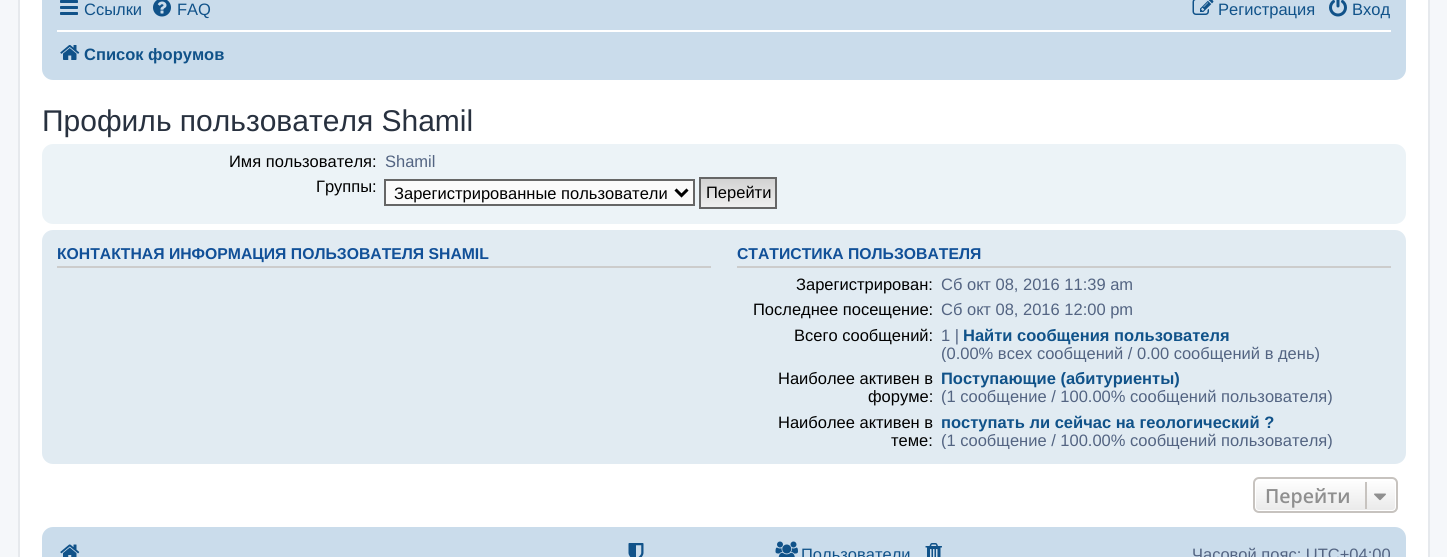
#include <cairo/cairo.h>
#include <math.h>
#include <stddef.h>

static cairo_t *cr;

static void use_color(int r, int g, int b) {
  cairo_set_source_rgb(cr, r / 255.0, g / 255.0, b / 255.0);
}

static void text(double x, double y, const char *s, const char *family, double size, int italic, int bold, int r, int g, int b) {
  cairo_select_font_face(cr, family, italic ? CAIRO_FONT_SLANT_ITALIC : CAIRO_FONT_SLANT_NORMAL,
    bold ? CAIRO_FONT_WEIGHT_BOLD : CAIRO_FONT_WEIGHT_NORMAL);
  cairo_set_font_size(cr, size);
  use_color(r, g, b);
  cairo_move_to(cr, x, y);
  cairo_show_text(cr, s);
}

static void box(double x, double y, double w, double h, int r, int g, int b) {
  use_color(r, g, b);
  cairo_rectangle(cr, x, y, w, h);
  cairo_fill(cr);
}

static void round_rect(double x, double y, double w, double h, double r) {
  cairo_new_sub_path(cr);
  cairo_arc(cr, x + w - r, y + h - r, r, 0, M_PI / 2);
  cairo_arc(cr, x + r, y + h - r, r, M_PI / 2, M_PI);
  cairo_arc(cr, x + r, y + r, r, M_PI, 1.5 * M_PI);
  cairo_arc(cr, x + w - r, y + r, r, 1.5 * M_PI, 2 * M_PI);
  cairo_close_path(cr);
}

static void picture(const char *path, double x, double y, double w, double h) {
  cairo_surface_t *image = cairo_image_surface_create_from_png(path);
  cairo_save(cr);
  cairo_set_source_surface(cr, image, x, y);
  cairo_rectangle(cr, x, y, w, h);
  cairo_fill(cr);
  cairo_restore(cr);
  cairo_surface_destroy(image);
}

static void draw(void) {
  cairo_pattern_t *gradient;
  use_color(245, 247, 250);
  cairo_paint(cr);
  use_color(255, 255, 255);
  cairo_rectangle(cr, 19, -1, 1410, 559);
  cairo_fill_preserve(cr);
  use_color(230, 233, 237);
  cairo_stroke(cr);
  use_color(202, 220, 235);
  round_rect(42, -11, 1364, 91, 11);
  cairo_fill(cr);
  picture("img_01.png", 60, 0, 18, 15);
  picture("img_02.png", 153, 0, 18, 17);
  picture("img_03.png", 1192, 0, 22, 15);
  picture("img_04.png", 1329, 0, 18, 17);
  box(57, 30, 1334, 2, 255, 255, 255);
  picture("img_05.png", 60, 45, 20, 15);
  use_color(236, 243, 247);
  round_rect(42, 144, 1364, 80, 11);
  cairo_fill(cr);
  use_color(250, 250, 250);
  cairo_rectangle(cr, 385, 180, 309, 25);
  cairo_fill_preserve(cr);
  use_color(102, 102, 102);
  cairo_stroke(cr);
  cairo_new_path(cr);
  cairo_move_to(cr, 675.5, 189.5);
  cairo_line_to(cr, 681.5, 195.5);
  cairo_line_to(cr, 687.5, 189.5);
  use_color(0, 0, 0);
  cairo_set_line_width(cr, 3);
  cairo_stroke(cr);
  gradient = cairo_pattern_create_linear(738, 179, 738, 207);
  cairo_pattern_add_color_stop_rgba(gradient, 0, 0.824, 0.824, 0.824, 1);
  cairo_pattern_add_color_stop_rgba(gradient, 1, 0.937, 0.937, 0.937, 1);
  cairo_set_source(cr, gradient);
  cairo_pattern_destroy(gradient);
  cairo_rectangle(cr, 701, 179, 74, 28);
  cairo_fill(cr);
  cairo_rectangle(cr, 700, 178, 76, 30);
  use_color(102, 102, 102);
  cairo_set_line_width(cr, 2);
  cairo_stroke(cr);
  use_color(225, 235, 242);
  round_rect(42, 230, 1364, 234, 11);
  cairo_fill(cr);
  box(57, 266, 654, 2, 204, 204, 204);
  box(737, 266, 654, 2, 204, 204, 204);
  cairo_save(cr);
  round_rect(1253, 477, 145, 36, 6);
  cairo_clip(cr);
  gradient = cairo_pattern_create_linear(1325, 479, 1325, 512);
  cairo_pattern_add_color_stop_rgba(gradient, 0, 1, 1, 1, 1);
  cairo_pattern_add_color_stop_rgba(gradient, 1, 0.914, 0.914, 0.914, 1);
  cairo_set_source(cr, gradient);
  cairo_pattern_destroy(gradient);
  cairo_rectangle(cr, 1253, 479, 145, 33);
  cairo_fill(cr);
  cairo_restore(cr);
  round_rect(1255, 480, 141, 31, 4);
  use_color(255, 255, 255);
  cairo_stroke(cr);
  round_rect(1254, 478, 143, 34, 5);
  use_color(199, 195, 191);
  cairo_stroke(cr);
  box(1365, 482, 2, 27, 199, 195, 191);
  picture("img_06.png", 1374, 493, 12, 8);
  use_color(202, 220, 235);
  round_rect(42, 527, 1364, 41, 11);
  cairo_fill(cr);
  picture("img_07.png", 60, 544, 20, 13);
  picture("img_08.png", 628, 543, 16, 14);
  picture("img_09.png", 775, 541, 23, 16);
  picture("img_10.png", 925, 543, 17, 14);
  text(84, 15, "Ссылки", "Liberation Sans", 16.5, 0, 0, 16, 82, 137);
  text(177, 15, "FAQ", "Liberation Sans", 16.5, 0, 0, 16, 82, 137);
  text(1218, 15, "Регистрация", "Liberation Sans", 16.5, 0, 0, 16, 82, 137);
  text(1352, 15, "Вход", "Liberation Sans", 16.5, 0, 0, 16, 82, 137);
  text(84, 60, "Список форумов", "Liberation Sans", 16.5, 0, 1, 16, 82, 137);
  text(42, 131, "Профиль пользователя Shamil", "Liberation Sans", 30, 0, 0, 40, 49, 63);
  text(229, 167, "Имя пользователя:", "Liberation Sans", 16.5, 0, 0, 0, 0, 0);
  text(385, 167, "Shamil", "Liberation Sans", 16.5, 0, 0, 83, 100, 130);
  text(316, 192, "Группы:", "Liberation Sans", 16.5, 0, 0, 0, 0, 0);
  text(394, 199, "Зарегистрированные пользователи", "Liberation Sans", 16.5, 0, 0, 0, 0, 0);
  text(706, 198, "Перейти", "Liberation Sans", 16.5, 0, 0, 0, 0, 0);
  text(57, 259, "КОНТАКТНАЯ ИНФОРМАЦИЯ ПОЛЬЗОВАТЕЛЯ SHAMIL", "Liberation Sans", 15.75, 0, 1, 17, 80, 152);
  text(737, 259, "СТАТИСТИКА ПОЛЬЗОВАТЕЛЯ", "Liberation Sans", 15.75, 0, 1, 17, 80, 152);
  text(796, 290, "Зарегистрирован:", "Liberation Sans", 16.5, 0, 0, 0, 0, 0);
  text(941, 290, "Сб окт 08, 2016 11:39 am", "Liberation Sans", 16.5, 0, 0, 83, 100, 130);
  text(753, 315, "Последнее посещение:", "Liberation Sans", 16.5, 0, 0, 0, 0, 0);
  text(941, 315, "Сб окт 08, 2016 12:00 pm", "Liberation Sans", 16.5, 0, 0, 83, 100, 130);
  text(794, 341, "Всего сообщений:", "Liberation Sans", 16.5, 0, 0, 0, 0, 0);
  text(941, 341, "1 |", "Liberation Sans", 16.5, 0, 0, 83, 100, 130);
  text(963, 341, "Найти сообщения пользователя", "Liberation Sans", 16.5, 0, 1, 16, 82, 137);
  cairo_save(cr);
  cairo_rectangle(cr, 933, 326, 432, 36);
  cairo_clip(cr);
  text(941, 359, "(0.00% всех сообщений / 0.00 сообщений в день)", "Liberation Sans", 16.5, 0, 0, 83, 100, 130);
  cairo_restore(cr);
  text(778, 384, "Наиболее активен в", "Liberation Sans", 16.5, 0, 0, 0, 0, 0);
  text(868, 402, "форуме:", "Liberation Sans", 16.5, 0, 0, 0, 0, 0);
  text(941, 384, "Поступающие (абитуриенты)", "Liberation Sans", 16.5, 0, 1, 16, 82, 137);
  cairo_save(cr);
  cairo_rectangle(cr, 933, 369, 432, 36);
  cairo_clip(cr);
  text(941, 402, "(1 сообщение / 100.00% сообщений пользователя)", "Liberation Sans", 16.5, 0, 0, 83, 100, 130);
  cairo_restore(cr);
  text(778, 428, "Наиболее активен в", "Liberation Sans", 16.5, 0, 0, 0, 0, 0);
  text(891, 446, "теме:", "Liberation Sans", 16.5, 0, 0, 0, 0, 0);
  text(941, 428, "поступать ли сейчас на геологический ?", "Liberation Sans", 16.5, 0, 1, 16, 82, 137);
  cairo_save(cr);
  cairo_rectangle(cr, 933, 413, 432, 36);
  cairo_clip(cr);
  text(941, 446, "(1 сообщение / 100.00% сообщений пользователя)", "Liberation Sans", 16.5, 0, 0, 83, 100, 130);
  cairo_restore(cr);
  text(1265, 503, "Перейти", "Open Sans SemiBold", 19.5, 0, 0, 143, 143, 143);
  text(801, 560, "Пользователи", "Liberation Sans", 16.5, 0, 0, 16, 82, 137);
  text(1192, 560, "Часовой пояс: UTC+04:00", "Liberation Sans", 16.5, 0, 0, 83, 100, 130);
}

int main(void) {
  cairo_surface_t *surface = cairo_image_surface_create(CAIRO_FORMAT_RGB24, 1447, 557);
  cr = cairo_create(surface);
  cairo_font_options_t *options = cairo_font_options_create();
  cairo_font_options_set_hint_metrics(options, CAIRO_HINT_METRICS_OFF);
  cairo_font_options_set_hint_style(options, CAIRO_HINT_STYLE_NONE);
  cairo_set_font_options(cr, options);
  cairo_set_miter_limit(cr, 4);
  draw();
  cairo_surface_write_to_png(surface, "out.png");
  cairo_font_options_destroy(options);
  cairo_destroy(cr);
  cairo_surface_destroy(surface);
  return 0;
}
